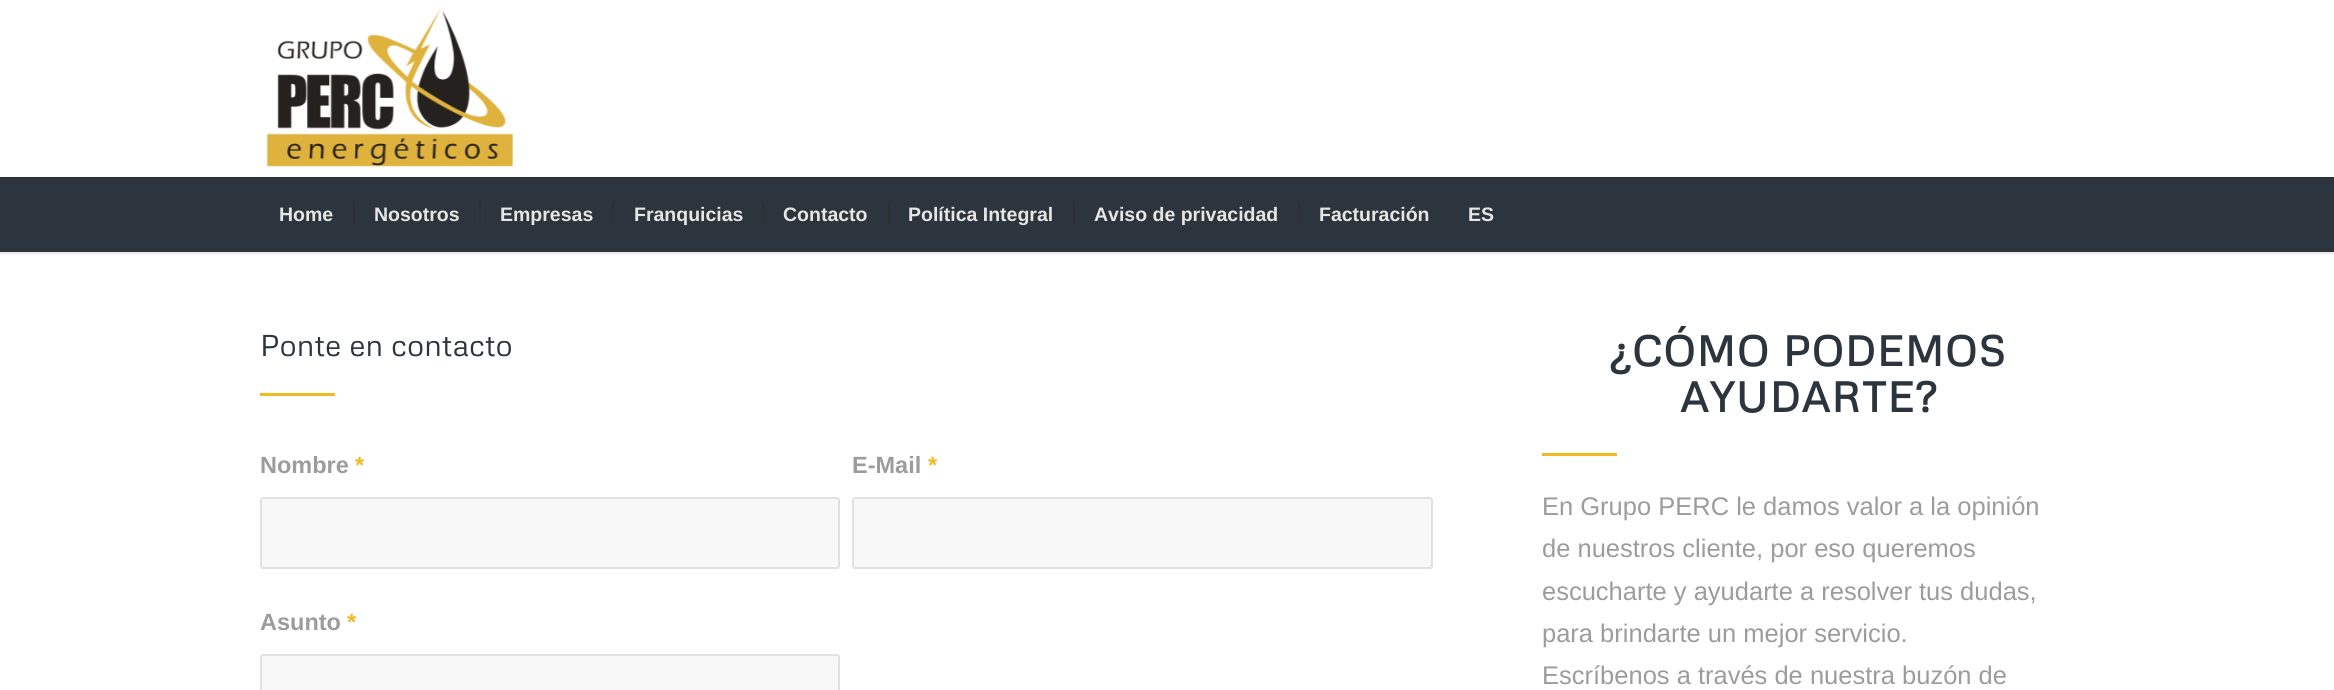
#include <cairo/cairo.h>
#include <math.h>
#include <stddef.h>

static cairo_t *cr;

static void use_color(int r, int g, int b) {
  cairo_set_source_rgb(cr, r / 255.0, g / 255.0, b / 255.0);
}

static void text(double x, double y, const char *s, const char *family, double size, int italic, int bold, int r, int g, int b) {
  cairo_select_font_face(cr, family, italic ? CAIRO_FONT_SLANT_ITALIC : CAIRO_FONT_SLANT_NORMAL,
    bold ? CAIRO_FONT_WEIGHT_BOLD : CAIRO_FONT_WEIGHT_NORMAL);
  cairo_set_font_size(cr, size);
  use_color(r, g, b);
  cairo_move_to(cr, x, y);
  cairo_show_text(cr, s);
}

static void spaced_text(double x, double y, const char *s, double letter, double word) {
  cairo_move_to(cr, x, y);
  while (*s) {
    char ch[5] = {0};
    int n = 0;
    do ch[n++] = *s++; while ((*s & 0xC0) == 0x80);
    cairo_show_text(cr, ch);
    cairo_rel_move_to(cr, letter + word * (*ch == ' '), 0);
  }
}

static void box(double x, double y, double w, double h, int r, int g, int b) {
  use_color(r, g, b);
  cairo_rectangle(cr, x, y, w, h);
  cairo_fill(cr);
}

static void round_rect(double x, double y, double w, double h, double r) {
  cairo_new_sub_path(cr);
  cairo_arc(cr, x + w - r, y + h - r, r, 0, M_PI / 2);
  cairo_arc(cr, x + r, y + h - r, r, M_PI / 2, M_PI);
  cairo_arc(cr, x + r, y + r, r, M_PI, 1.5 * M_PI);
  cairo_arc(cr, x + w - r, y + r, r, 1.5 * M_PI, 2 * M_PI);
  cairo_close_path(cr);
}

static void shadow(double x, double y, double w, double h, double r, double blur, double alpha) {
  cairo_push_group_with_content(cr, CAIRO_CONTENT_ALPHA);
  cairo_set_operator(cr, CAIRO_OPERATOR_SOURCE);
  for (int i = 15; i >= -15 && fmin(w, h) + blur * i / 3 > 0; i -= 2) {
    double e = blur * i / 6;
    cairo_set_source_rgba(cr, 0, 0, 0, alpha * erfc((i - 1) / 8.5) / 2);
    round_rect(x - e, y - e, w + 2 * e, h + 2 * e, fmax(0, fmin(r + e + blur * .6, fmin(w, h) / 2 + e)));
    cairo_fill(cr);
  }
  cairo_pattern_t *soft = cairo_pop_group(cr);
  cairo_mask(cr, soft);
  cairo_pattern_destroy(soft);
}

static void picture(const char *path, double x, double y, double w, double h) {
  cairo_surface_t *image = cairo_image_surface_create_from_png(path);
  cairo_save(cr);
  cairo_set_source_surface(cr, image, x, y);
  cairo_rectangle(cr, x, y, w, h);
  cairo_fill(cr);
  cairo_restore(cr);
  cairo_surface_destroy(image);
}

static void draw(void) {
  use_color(255, 255, 255);
  cairo_paint(cr);
  cairo_save(cr);
  cairo_rectangle(cr, 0, 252, 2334, 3);
  cairo_clip(cr);
  use_color(0, 0, 0);
  shadow(-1, -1, 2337, 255, 0, 1.5, 0.1);
  cairo_restore(cr);
  picture("img_01.png", 266, 8, 247, 159);
  box(0, 177, 2334, 75, 44, 53, 61);
  box(353, 203, 2, 22, 44, 48, 51);
  box(479, 203, 2, 22, 44, 48, 51);
  box(612, 203, 2, 22, 44, 48, 51);
  box(762, 203, 2, 22, 44, 48, 51);
  box(888, 203, 2, 22, 44, 48, 51);
  box(1073, 203, 2, 22, 44, 48, 51);
  box(1298, 203, 2, 22, 44, 48, 51);
  box(260, 393, 75, 3, 239, 187, 32);
  use_color(248, 248, 248);
  round_rect(261, 498, 578, 70, 2);
  cairo_fill_preserve(cr);
  use_color(225, 225, 225);
  cairo_stroke(cr);
  use_color(248, 248, 248);
  round_rect(853, 498, 579, 70, 2);
  cairo_fill_preserve(cr);
  use_color(225, 225, 225);
  cairo_stroke(cr);
  use_color(248, 248, 248);
  round_rect(261, 655, 578, 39, 2);
  cairo_fill_preserve(cr);
  use_color(225, 225, 225);
  cairo_stroke(cr);
  box(1542, 453, 75, 3, 239, 187, 32);
  text(279, 221, "Home", "Liberation Sans", 19.5, 0, 1, 230, 230, 230);
  text(374, 221, "Nosotros", "Liberation Sans", 19.5, 0, 1, 230, 230, 230);
  text(500, 221, "Empresas", "Liberation Sans", 19.5, 0, 1, 230, 230, 230);
  text(634, 221, "Franquicias", "Liberation Sans", 19.5, 0, 1, 230, 230, 230);
  text(783, 221, "Contacto", "Liberation Sans", 19.5, 0, 1, 230, 230, 230);
  text(908, 221, "Política Integral", "Liberation Sans", 19.5, 0, 1, 230, 230, 230);
  text(1094, 221, "Aviso de privacidad", "Liberation Sans", 19.5, 0, 1, 230, 230, 230);
  text(1319, 221, "Facturación", "Liberation Sans", 19.5, 0, 1, 230, 230, 230);
  text(1468, 221, "ES", "Liberation Sans", 19.5, 0, 1, 230, 230, 230);
  text(260, 356, "Ponte en contacto", "Metrophobic", 30, 0, 0, 44, 53, 61);
  text(260, 473, "Nombre", "Liberation Sans", 23.5, 0, 1, 156, 156, 156);
  text(355, 473, "*", "Liberation Sans", 23.5, 0, 1, 239, 187, 32);
  text(852, 473, "E-Mail", "Liberation Sans", 23.5, 0, 1, 156, 156, 156);
  text(928, 473, "*", "Liberation Sans", 23.5, 0, 1, 239, 187, 32);
  text(260, 630, "Asunto", "Liberation Sans", 23.5, 0, 1, 156, 156, 156);
  text(347, 630, "*", "Liberation Sans", 23.5, 0, 1, 239, 187, 32);
  cairo_select_font_face(cr, "Metrophobic", CAIRO_FONT_SLANT_NORMAL, CAIRO_FONT_WEIGHT_BOLD);
  cairo_set_font_size(cr, 42);
  use_color(44, 53, 61);
  spaced_text(1610, 366, "¿CÓMO PODEMOS", 1.5, 0);
  spaced_text(1680, 412, "AYUDARTE?", 1.5, 0);
  text(1542, 515, "En Grupo PERC le damos valor a la opinión", "Liberation Sans", 25.5, 0, 0, 156, 156, 156);
  text(1542, 557, "de nuestros cliente, por eso queremos", "Liberation Sans", 25.5, 0, 0, 156, 156, 156);
  text(1542, 600, "escucharte y ayudarte a resolver tus dudas,", "Liberation Sans", 25.5, 0, 0, 156, 156, 156);
  text(1542, 642, "para brindarte un mejor servicio.", "Liberation Sans", 25.5, 0, 0, 156, 156, 156);
  text(1542, 684, "Escríbenos a través de nuestra buzón de", "Liberation Sans", 25.5, 0, 0, 156, 156, 156);
}

int main(void) {
  cairo_surface_t *surface = cairo_image_surface_create(CAIRO_FORMAT_RGB24, 2334, 690);
  cr = cairo_create(surface);
  cairo_font_options_t *options = cairo_font_options_create();
  cairo_font_options_set_hint_metrics(options, CAIRO_HINT_METRICS_OFF);
  cairo_font_options_set_hint_style(options, CAIRO_HINT_STYLE_NONE);
  cairo_set_font_options(cr, options);
  cairo_set_miter_limit(cr, 4);
  draw();
  cairo_surface_write_to_png(surface, "out.png");
  cairo_font_options_destroy(options);
  cairo_destroy(cr);
  cairo_surface_destroy(surface);
  return 0;
}
